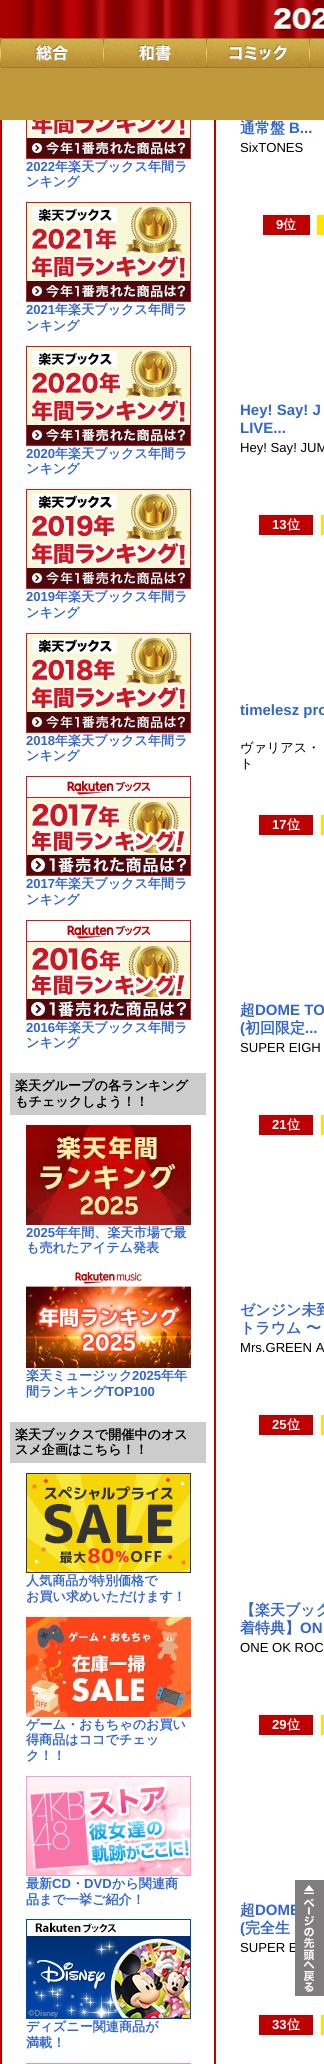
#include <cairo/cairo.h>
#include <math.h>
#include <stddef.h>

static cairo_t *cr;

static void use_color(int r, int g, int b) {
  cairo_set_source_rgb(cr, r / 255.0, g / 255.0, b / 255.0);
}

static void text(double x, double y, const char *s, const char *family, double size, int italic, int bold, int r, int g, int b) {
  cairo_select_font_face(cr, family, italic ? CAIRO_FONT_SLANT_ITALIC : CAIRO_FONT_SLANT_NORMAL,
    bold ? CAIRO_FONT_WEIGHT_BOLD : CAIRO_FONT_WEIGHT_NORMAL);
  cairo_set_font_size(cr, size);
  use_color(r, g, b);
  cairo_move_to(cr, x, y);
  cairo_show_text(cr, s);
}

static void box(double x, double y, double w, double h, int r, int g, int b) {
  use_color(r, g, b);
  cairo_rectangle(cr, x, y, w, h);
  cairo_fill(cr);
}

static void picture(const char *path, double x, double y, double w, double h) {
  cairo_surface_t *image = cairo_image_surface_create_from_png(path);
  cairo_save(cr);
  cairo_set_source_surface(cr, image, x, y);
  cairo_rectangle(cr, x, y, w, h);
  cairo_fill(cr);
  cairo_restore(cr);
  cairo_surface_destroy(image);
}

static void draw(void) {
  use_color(255, 255, 255);
  cairo_paint(cr);
  cairo_rectangle(cr, 1, -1, 214, 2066);
  use_color(191, 0, 0);
  cairo_stroke(cr);
  box(0, 38, 324, 82, 192, 152, 60);
  picture("img_01.png", 0, 0, 324, 38);
  picture("img_02.png", 274, 8, 50, 23);
  picture("img_03.png", 0, 38, 103, 30);
  picture("img_04.png", 0, 38, 103, 30);
  picture("img_05.png", 103, 38, 3, 30);
  picture("img_06.png", 103, 38, 105, 30);
  picture("img_07.png", 206, 38, 3, 30);
  picture("img_08.png", 206, 38, 105, 30);
  picture("img_09.png", 309, 38, 15, 30);
  picture("img_10.png", 309, 38, 15, 29);
  picture("img_11.png", 26, 120, 165, 39);
  picture("img_12.png", 26, 202, 165, 100);
  picture("img_13.png", 26, 346, 165, 100);
  picture("img_14.png", 26, 489, 165, 100);
  picture("img_15.png", 26, 633, 165, 100);
  picture("img_16.png", 26, 776, 165, 100);
  picture("img_17.png", 26, 920, 165, 100);
  box(10, 1073, 196, 42, 204, 204, 204);
  picture("img_18.png", 26, 1125, 165, 100);
  picture("img_19.png", 26, 1272, 165, 96);
  box(10, 1422, 196, 41, 204, 204, 204);
  picture("img_20.png", 26, 1473, 165, 100);
  picture("img_21.png", 26, 1617, 165, 100);
  picture("img_22.png", 26, 1776, 165, 100);
  picture("img_23.png", 26, 1919, 165, 100);
  picture("img_24.png", 26, 2063, 165, 1);
  box(263, 215, 47, 20, 191, 0, 0);
  box(317, 215, 7, 20, 255, 228, 0);
  box(259, 515, 54, 20, 191, 0, 0);
  box(321, 515, 3, 20, 255, 228, 0);
  box(259, 815, 54, 20, 191, 0, 0);
  box(321, 815, 3, 20, 255, 228, 0);
  box(259, 1115, 54, 20, 191, 0, 0);
  box(321, 1115, 3, 20, 255, 228, 0);
  box(259, 1415, 54, 20, 191, 0, 0);
  box(321, 1415, 3, 20, 255, 228, 0);
  box(259, 1715, 54, 20, 191, 0, 0);
  box(321, 1715, 3, 20, 255, 228, 0);
  box(259, 2015, 54, 20, 191, 0, 0);
  box(321, 2015, 3, 20, 255, 228, 0);
  text(26, 171, "2022", "Liberation Sans", 13.1, 0, 1, 51, 102, 204);
  text(55, 171, "年楽天ブックス年間ラ", "WenQuanYi Zen Hei", 13.1, 0, 1, 51, 102, 204);
  text(26, 186, "ンキング", "WenQuanYi Zen Hei", 13.1, 0, 1, 51, 102, 204);
  text(26, 314, "2021", "Liberation Sans", 13.1, 0, 1, 51, 102, 204);
  text(55, 314, "年楽天ブックス年間ラ", "WenQuanYi Zen Hei", 13.1, 0, 1, 51, 102, 204);
  text(26, 330, "ンキング", "WenQuanYi Zen Hei", 13.1, 0, 1, 51, 102, 204);
  text(26, 458, "2020", "Liberation Sans", 13.1, 0, 1, 51, 102, 204);
  text(55, 458, "年楽天ブックス年間ラ", "WenQuanYi Zen Hei", 13.1, 0, 1, 51, 102, 204);
  text(26, 473, "ンキング", "WenQuanYi Zen Hei", 13.1, 0, 1, 51, 102, 204);
  text(26, 601, "2019", "Liberation Sans", 13.1, 0, 1, 51, 102, 204);
  text(55, 601, "年楽天ブックス年間ラ", "WenQuanYi Zen Hei", 13.1, 0, 1, 51, 102, 204);
  text(26, 617, "ンキング", "WenQuanYi Zen Hei", 13.1, 0, 1, 51, 102, 204);
  text(26, 745, "2018", "Liberation Sans", 13.1, 0, 1, 51, 102, 204);
  text(55, 745, "年楽天ブックス年間ラ", "WenQuanYi Zen Hei", 13.1, 0, 1, 51, 102, 204);
  text(26, 760, "ンキング", "WenQuanYi Zen Hei", 13.1, 0, 1, 51, 102, 204);
  text(26, 888, "2017", "Liberation Sans", 13.1, 0, 1, 51, 102, 204);
  text(55, 888, "年楽天ブックス年間ラ", "WenQuanYi Zen Hei", 13.1, 0, 1, 51, 102, 204);
  text(26, 904, "ンキング", "WenQuanYi Zen Hei", 13.1, 0, 1, 51, 102, 204);
  text(26, 1032, "2016", "Liberation Sans", 13.1, 0, 1, 51, 102, 204);
  text(55, 1032, "年楽天ブックス年間ラ", "WenQuanYi Zen Hei", 13.1, 0, 1, 51, 102, 204);
  text(26, 1047, "ンキング", "WenQuanYi Zen Hei", 13.1, 0, 1, 51, 102, 204);
  text(15, 1090, "楽天グループの各ランキング", "WenQuanYi Zen Hei", 13.1, 0, 1, 0, 0, 0);
  text(15, 1106, "もチェックしよう！！", "WenQuanYi Zen Hei", 13.1, 0, 1, 0, 0, 0);
  text(26, 1237, "2025", "Liberation Sans", 13.1, 0, 1, 51, 102, 204);
  text(55, 1237, "年年間、楽天市場で最", "WenQuanYi Zen Hei", 13.1, 0, 1, 51, 102, 204);
  text(26, 1252, "も売れたアイテム発表", "WenQuanYi Zen Hei", 13.1, 0, 1, 51, 102, 204);
  text(26, 1380, "楽天ミュージック", "WenQuanYi Zen Hei", 13.1, 0, 1, 51, 102, 204);
  text(132, 1380, "2025", "Liberation Sans", 13.1, 0, 1, 51, 102, 204);
  text(161, 1380, "年年", "WenQuanYi Zen Hei", 13.1, 0, 1, 51, 102, 204);
  text(26, 1396, "間ランキング", "WenQuanYi Zen Hei", 13.1, 0, 1, 51, 102, 204);
  text(106, 1396, "TOP100", "Liberation Sans", 13.1, 0, 1, 51, 102, 204);
  text(15, 1439, "楽天ブックスで開催中のオス", "WenQuanYi Zen Hei", 13.1, 0, 1, 0, 0, 0);
  text(15, 1454, "スメ企画はこちら！！", "WenQuanYi Zen Hei", 13.1, 0, 1, 0, 0, 0);
  text(26, 1585, "人気商品が特別価格で", "WenQuanYi Zen Hei", 13.1, 0, 1, 51, 102, 204);
  text(26, 1601, "お買い求めいただけます！", "WenQuanYi Zen Hei", 13.1, 0, 1, 51, 102, 204);
  text(26, 1729, "ゲーム・おもちゃのお買い", "WenQuanYi Zen Hei", 13.1, 0, 1, 51, 102, 204);
  text(26, 1744, "得商品はココでチェッ", "WenQuanYi Zen Hei", 13.1, 0, 1, 51, 102, 204);
  text(26, 1760, "ク！！", "WenQuanYi Zen Hei", 13.1, 0, 1, 51, 102, 204);
  text(26, 1888, "最新", "WenQuanYi Zen Hei", 13.1, 0, 1, 51, 102, 204);
  text(52, 1888, "CD", "Liberation Sans", 13.1, 0, 1, 51, 102, 204);
  text(71, 1888, "・", "WenQuanYi Zen Hei", 13.1, 0, 1, 51, 102, 204);
  text(84, 1888, "DVD", "Liberation Sans", 13.1, 0, 1, 51, 102, 204);
  text(112, 1888, "から関連商", "WenQuanYi Zen Hei", 13.1, 0, 1, 51, 102, 204);
  text(26, 1904, "品まで一挙ご紹介！", "WenQuanYi Zen Hei", 13.1, 0, 1, 51, 102, 204);
  text(26, 2031, "ディズニー関連商品が", "WenQuanYi Zen Hei", 13.1, 0, 1, 51, 102, 204);
  text(26, 2047, "満載！", "WenQuanYi Zen Hei", 13.1, 0, 1, 51, 102, 204);
  text(240, 133, "通常盤", "WenQuanYi Zen Hei", 15, 0, 1, 51, 102, 204);
  text(289, 133, "B...", "Liberation Sans", 15, 0, 1, 51, 102, 204);
  text(240, 152, "SixTONES", "Liberation Sans", 13.1, 0, 0, 0, 0, 0);
  text(276, 229, "9", "Liberation Sans", 13.1, 0, 1, 255, 255, 255);
  text(283, 229, "位", "WenQuanYi Zen Hei", 13.1, 0, 1, 255, 255, 255);
  text(240, 415, "Hey! Say! J", "Liberation Sans", 15, 0, 1, 51, 102, 204);
  text(240, 433, "LIVE...", "Liberation Sans", 15, 0, 1, 51, 102, 204);
  text(240, 452, "Hey! Say! JUM", "Liberation Sans", 13.1, 0, 0, 0, 0, 0);
  text(272, 529, "13", "Liberation Sans", 13.1, 0, 1, 255, 255, 255);
  text(287, 529, "位", "WenQuanYi Zen Hei", 13.1, 0, 1, 255, 255, 255);
  text(240, 715, "timelesz pro", "Liberation Sans", 15, 0, 1, 51, 102, 204);
  text(240, 752, "ヴァリアス・", "WenQuanYi Zen Hei Medium", 13.1, 0, 0, 0, 0, 0);
  text(240, 768, "ト", "WenQuanYi Zen Hei Medium", 13.1, 0, 0, 0, 0, 0);
  text(272, 829, "17", "Liberation Sans", 13.1, 0, 1, 255, 255, 255);
  text(287, 829, "位", "WenQuanYi Zen Hei", 13.1, 0, 1, 255, 255, 255);
  text(240, 1015, "超", "WenQuanYi Zen Hei", 15, 0, 1, 51, 102, 204);
  text(255, 1015, "DOME TO", "Liberation Sans", 15, 0, 1, 51, 102, 204);
  text(240, 1033, "(", "Liberation Sans", 15, 0, 1, 51, 102, 204);
  text(245, 1033, "初回限定", "WenQuanYi Zen Hei", 15, 0, 1, 51, 102, 204);
  text(305, 1033, "...", "Liberation Sans", 15, 0, 1, 51, 102, 204);
  text(240, 1052, "SUPER EIGH", "Liberation Sans", 13.1, 0, 0, 0, 0, 0);
  text(272, 1129, "21", "Liberation Sans", 13.1, 0, 1, 255, 255, 255);
  text(287, 1129, "位", "WenQuanYi Zen Hei", 13.1, 0, 1, 255, 255, 255);
  text(240, 1315, "ゼンジン未到", "WenQuanYi Zen Hei", 15, 0, 1, 51, 102, 204);
  text(240, 1333, "トラウム 〜", "WenQuanYi Zen Hei", 15, 0, 1, 51, 102, 204);
  text(240, 1352, "Mrs.GREEN A", "Liberation Sans", 13.1, 0, 0, 0, 0, 0);
  text(272, 1429, "25", "Liberation Sans", 13.1, 0, 1, 255, 255, 255);
  text(287, 1429, "位", "WenQuanYi Zen Hei", 13.1, 0, 1, 255, 255, 255);
  text(240, 1615, "【楽天ブック", "WenQuanYi Zen Hei", 15, 0, 1, 51, 102, 204);
  text(240, 1633, "着特典】", "WenQuanYi Zen Hei", 15, 0, 1, 51, 102, 204);
  text(300, 1633, "ON", "Liberation Sans", 15, 0, 1, 51, 102, 204);
  text(240, 1652, "ONE OK ROC", "Liberation Sans", 13.1, 0, 0, 0, 0, 0);
  text(272, 1729, "29", "Liberation Sans", 13.1, 0, 1, 255, 255, 255);
  text(287, 1729, "位", "WenQuanYi Zen Hei", 13.1, 0, 1, 255, 255, 255);
  text(240, 1915, "超", "WenQuanYi Zen Hei", 15, 0, 1, 51, 102, 204);
  text(255, 1915, "DOME", "Liberation Sans", 15, 0, 1, 51, 102, 204);
  text(240, 1933, "(", "Liberation Sans", 15, 0, 1, 51, 102, 204);
  text(245, 1933, "完全生", "WenQuanYi Zen Hei", 15, 0, 1, 51, 102, 204);
  text(240, 1952, "SUPER E", "Liberation Sans", 13.1, 0, 0, 0, 0, 0);
  text(272, 2029, "33", "Liberation Sans", 13.1, 0, 1, 255, 255, 255);
  text(287, 2029, "位", "WenQuanYi Zen Hei", 13.1, 0, 1, 255, 255, 255);
  picture("img_25.png", 295, 1880, 29, 116);
}

int main(void) {
  cairo_surface_t *surface = cairo_image_surface_create(CAIRO_FORMAT_RGB24, 324, 2064);
  cr = cairo_create(surface);
  cairo_font_options_t *options = cairo_font_options_create();
  cairo_font_options_set_hint_metrics(options, CAIRO_HINT_METRICS_OFF);
  cairo_font_options_set_hint_style(options, CAIRO_HINT_STYLE_NONE);
  cairo_set_font_options(cr, options);
  cairo_set_miter_limit(cr, 4);
  draw();
  cairo_surface_write_to_png(surface, "out.png");
  cairo_font_options_destroy(options);
  cairo_destroy(cr);
  cairo_surface_destroy(surface);
  return 0;
}
